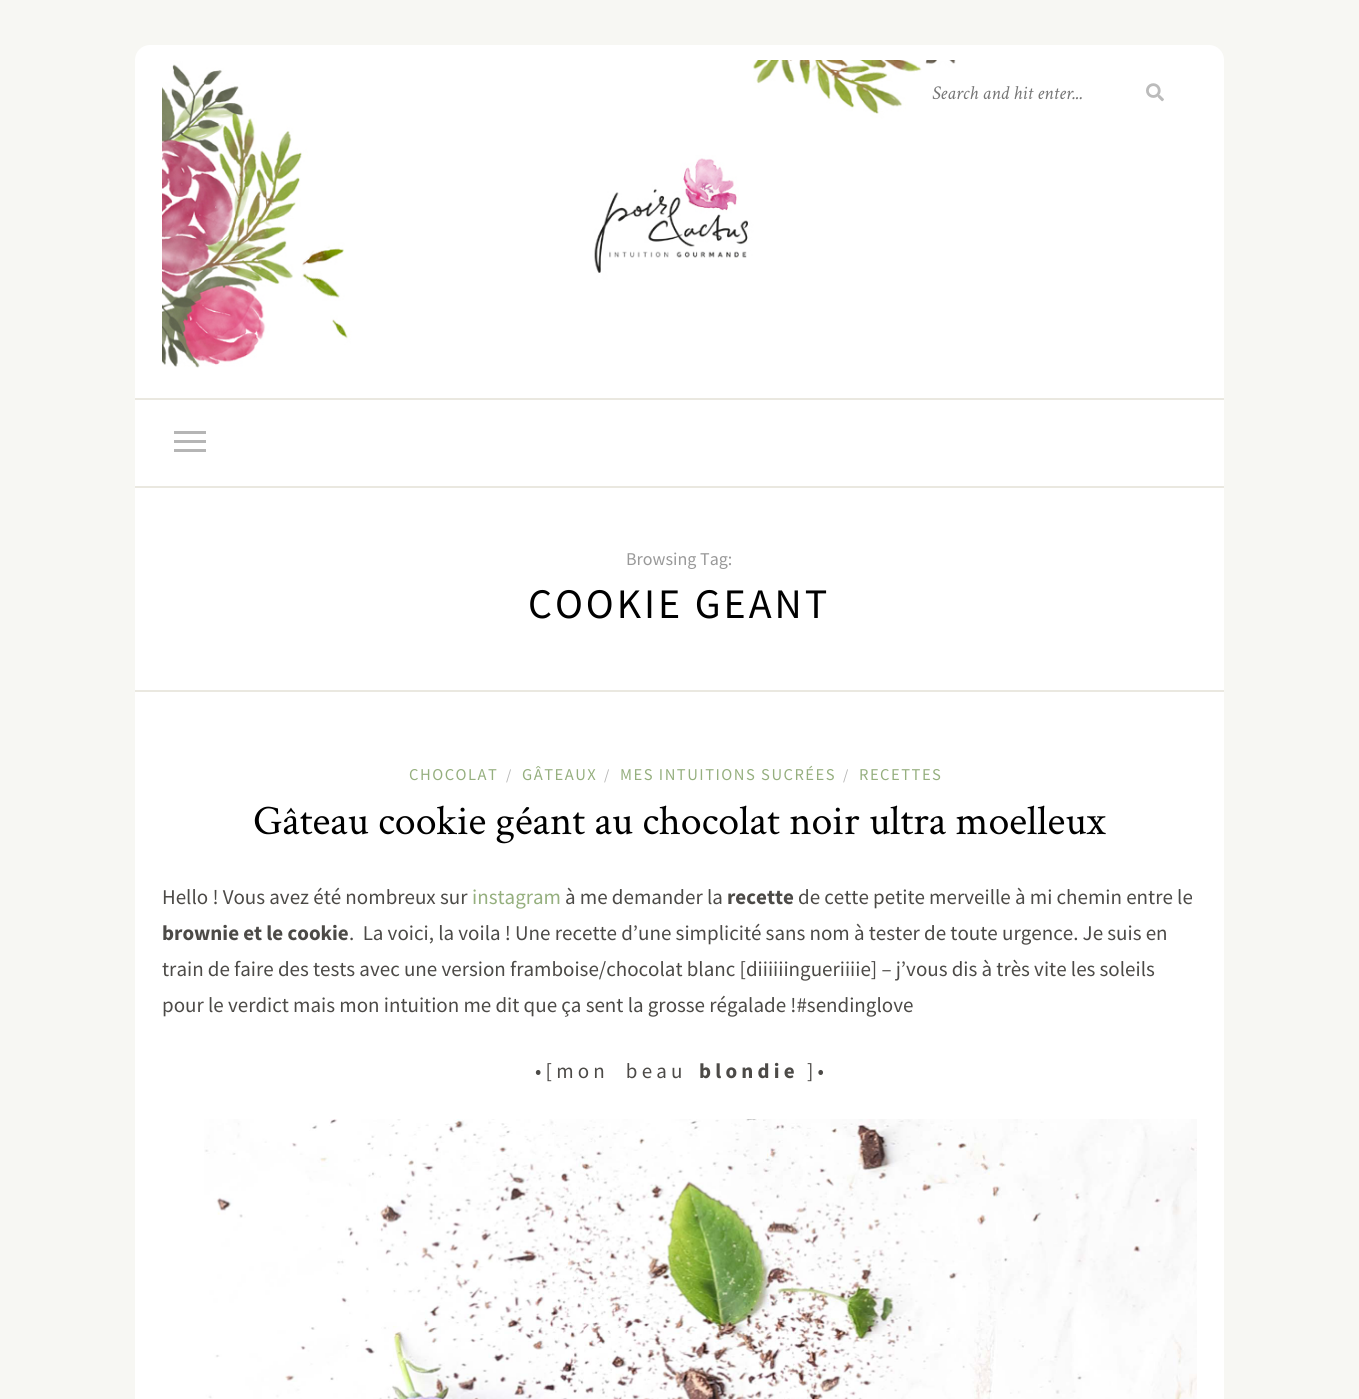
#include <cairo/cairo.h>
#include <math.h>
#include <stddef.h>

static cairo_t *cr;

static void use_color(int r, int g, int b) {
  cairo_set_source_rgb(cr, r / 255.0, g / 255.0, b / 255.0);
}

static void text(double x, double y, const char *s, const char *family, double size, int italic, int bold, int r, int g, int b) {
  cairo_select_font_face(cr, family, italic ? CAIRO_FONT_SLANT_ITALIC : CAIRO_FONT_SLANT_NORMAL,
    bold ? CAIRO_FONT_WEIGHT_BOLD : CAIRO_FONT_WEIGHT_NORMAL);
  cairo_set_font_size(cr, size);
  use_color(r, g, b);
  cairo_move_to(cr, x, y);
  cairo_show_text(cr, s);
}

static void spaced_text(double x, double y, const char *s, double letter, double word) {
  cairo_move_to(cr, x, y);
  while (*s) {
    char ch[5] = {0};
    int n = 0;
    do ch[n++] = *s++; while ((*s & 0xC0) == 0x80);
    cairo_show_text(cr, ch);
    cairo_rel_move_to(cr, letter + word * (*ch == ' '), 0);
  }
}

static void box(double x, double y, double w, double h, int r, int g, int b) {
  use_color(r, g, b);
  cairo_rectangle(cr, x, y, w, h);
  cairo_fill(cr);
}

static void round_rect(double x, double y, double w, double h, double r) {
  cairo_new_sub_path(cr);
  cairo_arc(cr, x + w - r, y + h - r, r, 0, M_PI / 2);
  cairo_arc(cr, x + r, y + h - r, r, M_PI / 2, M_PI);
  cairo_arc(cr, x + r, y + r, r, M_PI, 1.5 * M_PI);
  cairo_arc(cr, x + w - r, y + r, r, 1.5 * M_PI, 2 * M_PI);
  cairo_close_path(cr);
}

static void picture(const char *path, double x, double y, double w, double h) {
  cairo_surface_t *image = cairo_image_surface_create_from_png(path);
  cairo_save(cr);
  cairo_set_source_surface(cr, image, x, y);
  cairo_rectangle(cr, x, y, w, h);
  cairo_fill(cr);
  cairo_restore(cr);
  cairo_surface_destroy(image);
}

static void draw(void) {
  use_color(247, 247, 243);
  cairo_paint(cr);
  use_color(255, 255, 255);
  round_rect(135, 45, 1089, 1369, 15);
  cairo_fill(cr);
  picture("img_01.png", 162, 60, 794, 308);
  picture("img_02.png", 1146, 83, 18, 19);
  box(135, 398, 1089, 2, 234, 232, 224);
  box(135, 486, 1089, 2, 234, 232, 224);
  box(174, 431, 32, 3, 181, 181, 181);
  box(174, 440, 32, 3, 181, 181, 181);
  box(174, 449, 32, 3, 181, 181, 181);
  box(135, 690, 1089, 2, 234, 232, 224);
  picture("img_03.png", 204, 1119, 993, 280);
  text(932, 99, "Search and hit enter...", "Crimson Text", 19.5, 1, 0, 117, 117, 117);
  text(626, 565, "Browsing Tag:", "Source Sans Pro", 18, 0, 0, 153, 153, 153);
  cairo_set_font_size(cr, 42);
  use_color(0, 0, 0);
  spaced_text(528, 618, "COOKIE GEANT", 3, 0);
  cairo_set_font_size(cr, 16.5);
  use_color(149, 175, 126);
  spaced_text(409, 780, "CHOCOLAT", 1.5, 0);
  text(506, 780, "/", "Source Sans Pro", 15, 0, 0, 181, 181, 181);
  cairo_set_font_size(cr, 16.5);
  use_color(149, 175, 126);
  spaced_text(522, 780, "GÂTEAUX", 1.5, 0);
  text(604, 780, "/", "Source Sans Pro", 15, 0, 0, 181, 181, 181);
  cairo_set_font_size(cr, 16.5);
  use_color(149, 175, 126);
  spaced_text(620, 780, "MES INTUITIONS SUCRÉES", 1.5, 0);
  text(843, 780, "/", "Source Sans Pro", 15, 0, 0, 181, 181, 181);
  cairo_set_font_size(cr, 16.5);
  use_color(149, 175, 126);
  spaced_text(859, 780, "RECETTES", 1.5, 0);
  text(253, 834, "Gâteau cookie géant au chocolat noir ultra moelleux", "Crimson Text", 42, 0, 0, 0, 0, 0);
  text(162, 904, "Hello ! Vous avez été nombreux sur", "Source Sans Pro", 21, 0, 0, 76, 74, 71);
  text(472, 904, "instagram", "Source Sans Pro", 21, 0, 0, 149, 175, 126);
  text(565, 904, "à me demander la", "Source Sans Pro", 21, 0, 0, 76, 74, 71);
  text(727, 904, "recette", "Source Sans Pro", 21, 0, 1, 76, 74, 71);
  text(798, 904, "de cette petite merveille à mi chemin entre le", "Source Sans Pro", 21, 0, 0, 76, 74, 71);
  text(162, 940, "brownie et le cookie", "Source Sans Pro", 21, 0, 1, 76, 74, 71);
  text(349, 940, ".  La voici, la voila ! Une recette d’une simplicité sans nom à tester de toute urgence. Je suis en", "Source Sans Pro", 21, 0, 0, 76, 74, 71);
  text(162, 976, "train de faire des tests avec une version framboise/chocolat blanc [diiiiiingueriiiie] – j’vous dis à très vite les soleils", "Source Sans Pro", 21, 0, 0, 76, 74, 71);
  text(162, 1012, "pour le verdict mais mon intuition me dit que ça sent la grosse régalade !#sendinglove", "Source Sans Pro", 21, 0, 0, 76, 74, 71);
  text(535, 1078, "• [ m o n     b e a u", "Source Sans Pro", 21, 0, 0, 76, 74, 71);
  text(699, 1078, "b l o n d i e", "Source Sans Pro", 21, 0, 1, 76, 74, 71);
  text(807, 1078, "] •", "Source Sans Pro", 21, 0, 0, 76, 74, 71);
}

int main(void) {
  cairo_surface_t *surface = cairo_image_surface_create(CAIRO_FORMAT_RGB24, 1359, 1399);
  cr = cairo_create(surface);
  cairo_font_options_t *options = cairo_font_options_create();
  cairo_font_options_set_hint_metrics(options, CAIRO_HINT_METRICS_OFF);
  cairo_font_options_set_hint_style(options, CAIRO_HINT_STYLE_NONE);
  cairo_set_font_options(cr, options);
  cairo_set_miter_limit(cr, 4);
  draw();
  cairo_surface_write_to_png(surface, "out.png");
  cairo_font_options_destroy(options);
  cairo_destroy(cr);
  cairo_surface_destroy(surface);
  return 0;
}
